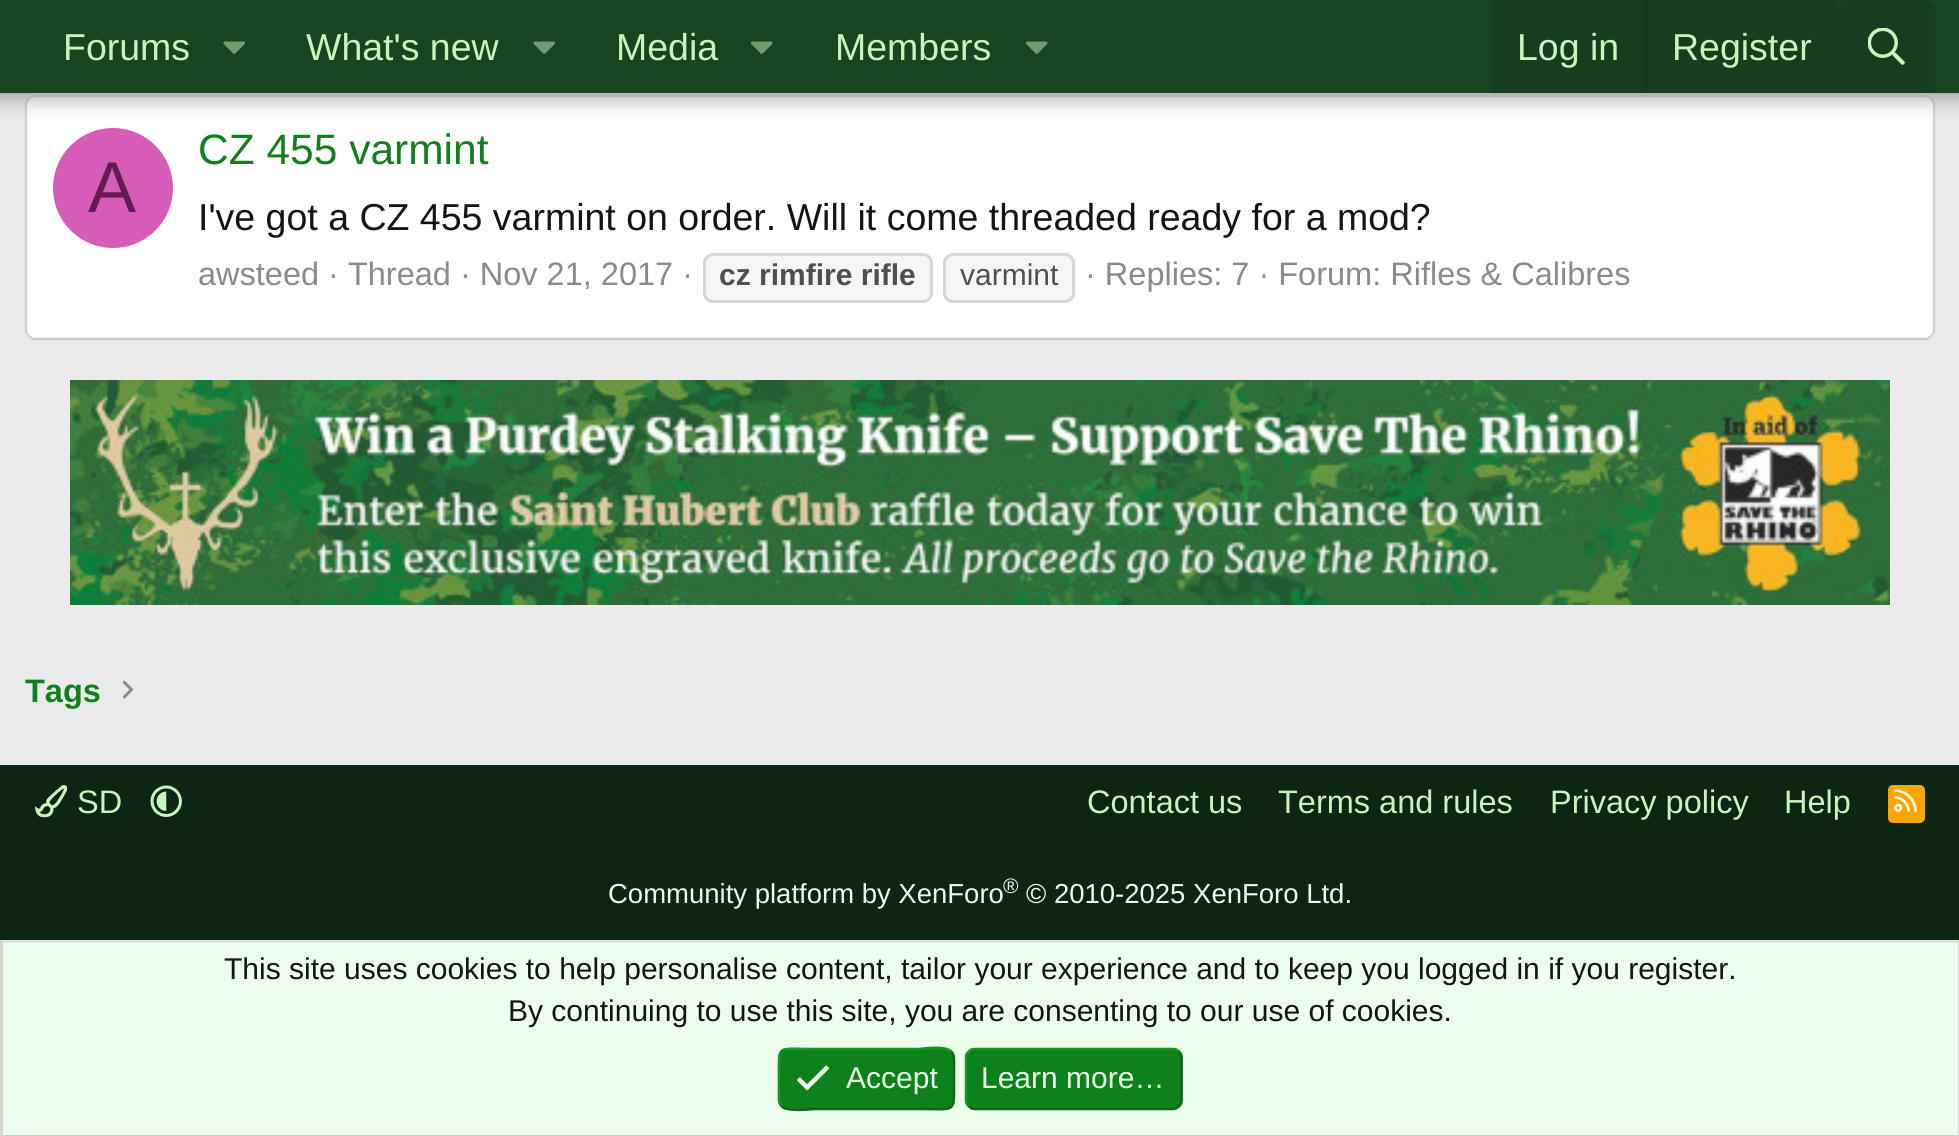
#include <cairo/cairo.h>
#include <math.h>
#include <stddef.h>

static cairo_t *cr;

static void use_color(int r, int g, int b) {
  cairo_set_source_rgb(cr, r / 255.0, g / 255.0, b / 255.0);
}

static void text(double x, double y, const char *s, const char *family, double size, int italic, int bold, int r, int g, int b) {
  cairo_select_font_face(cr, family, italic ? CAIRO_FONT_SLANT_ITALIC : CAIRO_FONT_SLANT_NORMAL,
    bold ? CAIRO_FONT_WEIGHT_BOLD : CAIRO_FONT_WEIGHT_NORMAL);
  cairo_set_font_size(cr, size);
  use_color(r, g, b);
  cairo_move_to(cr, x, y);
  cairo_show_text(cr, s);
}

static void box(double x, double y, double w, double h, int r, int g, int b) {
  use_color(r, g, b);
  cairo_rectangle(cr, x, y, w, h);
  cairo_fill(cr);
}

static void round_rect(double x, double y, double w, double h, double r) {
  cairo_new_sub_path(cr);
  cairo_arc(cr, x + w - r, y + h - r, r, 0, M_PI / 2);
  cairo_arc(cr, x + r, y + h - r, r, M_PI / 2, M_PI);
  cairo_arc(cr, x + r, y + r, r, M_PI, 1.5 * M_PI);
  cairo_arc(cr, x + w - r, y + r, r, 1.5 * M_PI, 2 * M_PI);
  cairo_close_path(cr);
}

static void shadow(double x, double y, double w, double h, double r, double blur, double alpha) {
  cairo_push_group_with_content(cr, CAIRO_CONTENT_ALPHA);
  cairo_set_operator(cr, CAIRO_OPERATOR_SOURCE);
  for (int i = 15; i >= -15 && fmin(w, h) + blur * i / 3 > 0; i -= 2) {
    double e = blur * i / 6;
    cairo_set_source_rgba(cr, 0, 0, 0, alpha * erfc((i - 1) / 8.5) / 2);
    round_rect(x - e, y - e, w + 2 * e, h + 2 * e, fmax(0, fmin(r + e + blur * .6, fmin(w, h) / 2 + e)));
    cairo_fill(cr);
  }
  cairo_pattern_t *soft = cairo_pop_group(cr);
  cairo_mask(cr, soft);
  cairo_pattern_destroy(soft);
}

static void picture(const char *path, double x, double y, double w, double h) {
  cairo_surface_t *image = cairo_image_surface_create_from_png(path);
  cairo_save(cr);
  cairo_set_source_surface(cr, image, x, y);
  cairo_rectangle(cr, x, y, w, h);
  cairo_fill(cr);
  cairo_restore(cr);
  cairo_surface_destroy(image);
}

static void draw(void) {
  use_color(235, 235, 235);
  cairo_paint(cr);
  use_color(255, 255, 255);
  round_rect(25, 95, 1910, 245, 10);
  cairo_fill(cr);
  cairo_new_path(cr);
  cairo_move_to(cr, 29, 99);
  cairo_curve_to(cr, 30.5, 97, 32.5, 96, 35, 96);
  cairo_line_to(cr, 1925, 96);
  cairo_curve_to(cr, 1927.5, 96, 1929.5, 97, 1931, 99);
  use_color(224, 224, 224);
  cairo_set_line_width(cr, 2.5);
  cairo_stroke(cr);
  cairo_new_path(cr);
  cairo_move_to(cr, 1931, 99);
  cairo_curve_to(cr, 1933, 100.5, 1934, 102.5, 1934, 105);
  cairo_line_to(cr, 1934, 330);
  cairo_curve_to(cr, 1934, 332.5, 1933, 334.5, 1931, 336);
  use_color(214, 214, 214);
  cairo_stroke(cr);
  cairo_new_path(cr);
  cairo_move_to(cr, 1931, 336);
  cairo_curve_to(cr, 1929.5, 338, 1927.5, 339, 1925, 339);
  cairo_line_to(cr, 35, 339);
  cairo_curve_to(cr, 32.5, 339, 30.5, 338, 29, 336);
  use_color(204, 204, 204);
  cairo_stroke(cr);
  cairo_new_path(cr);
  cairo_move_to(cr, 29, 336);
  cairo_curve_to(cr, 27, 334.5, 26, 332.5, 26, 330);
  cairo_line_to(cr, 26, 105);
  cairo_curve_to(cr, 26, 102.5, 27, 100.5, 29, 99);
  use_color(214, 214, 214);
  cairo_stroke(cr);
  use_color(214, 92, 184);
  cairo_arc(cr, 113, 188, 60, 0, 2 * M_PI);
  cairo_fill(cr);
  use_color(0, 0, 0);
  shadow(-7, -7, 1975, 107, 0, 10, 0.3);
  box(0, 0, 1959, 93, 23, 68, 33);
  picture("img_01.png", 223, 41, 22, 13);
  picture("img_01.png", 533, 41, 22, 13);
  picture("img_02.png", 750, 41, 23, 13);
  picture("img_02.png", 1025, 41, 23, 13);
  box(1493, 0, 345, 93, 23, 61, 31);
  box(1645, 0, 3, 93, 23, 55, 29);
  use_color(23, 61, 31);
  cairo_new_path(cr);
  cairo_move_to(cr, 1848, 0);
  cairo_line_to(cr, 1925, 0);
  cairo_curve_to(cr, 1930.5, 0, 1935, 4.5, 1935, 10);
  cairo_line_to(cr, 1935, 93);
  cairo_line_to(cr, 1838, 93);
  cairo_line_to(cr, 1838, 10);
  cairo_curve_to(cr, 1838, 4.5, 1842.5, 0, 1848, 0);
  cairo_close_path(cr);
  cairo_fill(cr);
  picture("img_03.png", 1868, 28, 37, 37);
  use_color(245, 245, 245);
  round_rect(704.5, 254.5, 227, 47, 8.5);
  cairo_fill_preserve(cr);
  use_color(214, 214, 214);
  cairo_set_line_width(cr, 3);
  cairo_stroke(cr);
  use_color(245, 245, 245);
  round_rect(944.5, 254.5, 129, 47, 8.5);
  cairo_fill_preserve(cr);
  use_color(214, 214, 214);
  cairo_stroke(cr);
  picture("img_04.png", 70, 380, 1820, 225);
  picture("img_05.png", 123, 680, 11, 19);
  box(0, 765, 1959, 175, 13, 38, 18);
  picture("img_06.png", 35, 785, 33, 33);
  picture("img_07.png", 150, 785, 32, 32);
  use_color(255, 165, 0);
  round_rect(1888, 785, 37, 38, 5);
  cairo_fill(cr);
  picture("img_08.png", 1894, 789, 23, 23);
  box(3, 943, 1955, 192, 237, 253, 237);
  box(0, 940, 1959, 3, 224, 224, 224);
  box(1958, 940, 1, 196, 214, 214, 214);
  box(0, 1135, 1959, 1, 204, 204, 204);
  box(0, 940, 3, 196, 214, 214, 214);
  use_color(14, 129, 27);
  round_rect(778, 1048, 177, 62, 10);
  cairo_fill(cr);
  cairo_new_path(cr);
  cairo_move_to(cr, 951, 1051.5);
  cairo_curve_to(cr, 954.5, 1055, 954, 1060, 954, 1064.5);
  cairo_line_to(cr, 954, 1079);
  cairo_curve_to(cr, 954, 1114, 957, 1109, 919, 1109);
  cairo_line_to(cr, 814, 1109);
  cairo_curve_to(cr, 812.5, 1109, 787.5, 1112.5, 781.5, 1106);
  use_color(11, 106, 22);
  cairo_set_line_width(cr, 2.5);
  cairo_stroke(cr);
  cairo_new_path(cr);
  cairo_move_to(cr, 781.5, 1106);
  cairo_curve_to(cr, 778, 1102.5, 779, 1097.5, 779, 1093);
  cairo_line_to(cr, 779, 1079);
  cairo_curve_to(cr, 779, 1043.5, 775.5, 1049, 814, 1049);
  cairo_line_to(cr, 919, 1049);
  cairo_curve_to(cr, 920, 1049, 945, 1045, 951, 1051.5);
  use_color(16, 152, 32);
  cairo_stroke(cr);
  picture("img_09.png", 797, 1065, 32, 26);
  use_color(14, 129, 27);
  round_rect(965, 1048, 218, 62, 10);
  cairo_fill(cr);
  cairo_new_path(cr);
  cairo_move_to(cr, 1178.5, 1051.5);
  cairo_curve_to(cr, 1180.5, 1053, 1181, 1055, 1181, 1057.5);
  cairo_line_to(cr, 1181, 1100);
  cairo_curve_to(cr, 1181, 1102.5, 1180.5, 1104.5, 1178.5, 1106);
  cairo_curve_to(cr, 1177, 1108, 1175, 1109, 1172.5, 1109);
  cairo_line_to(cr, 975, 1109);
  cairo_curve_to(cr, 972.5, 1109, 970.5, 1108, 969, 1106);
  use_color(11, 106, 22);
  cairo_stroke(cr);
  cairo_new_path(cr);
  cairo_move_to(cr, 969, 1106);
  cairo_curve_to(cr, 967, 1104.5, 966, 1102.5, 966, 1100);
  cairo_line_to(cr, 966, 1057.5);
  cairo_curve_to(cr, 966, 1055, 967, 1053, 969, 1051.5);
  cairo_curve_to(cr, 970.5, 1049.5, 972.5, 1049, 975, 1049);
  cairo_line_to(cr, 1172.5, 1049);
  cairo_curve_to(cr, 1175, 1049, 1177, 1049.5, 1178.5, 1051.5);
  use_color(16, 152, 32);
  cairo_stroke(cr);
  text(63, 60, "Forums", "Liberation Sans", 37.5, 0, 0, 200, 245, 188);
  text(306, 60, "What's new", "Liberation Sans", 37.5, 0, 0, 200, 245, 188);
  text(616, 60, "Media", "Liberation Sans", 37.5, 0, 0, 200, 245, 188);
  text(835, 60, "Members", "Liberation Sans", 37.5, 0, 0, 200, 245, 188);
  text(1517, 60, "Log in", "Liberation Sans", 37.5, 0, 0, 200, 245, 188);
  text(1672, 60, "Register", "Liberation Sans", 37.5, 0, 0, 200, 245, 188);
  text(88, 212, "A", "Liberation Sans", 72, 0, 0, 102, 26, 83);
  text(198, 164, "CZ 455 varmint", "Liberation Sans", 42.5, 0, 0, 14, 129, 27);
  text(198, 230, "I've got a CZ 455 varmint on order. Will it come threaded ready for a mod?", "Liberation Sans", 37.5, 0, 0, 20, 20, 20);
  text(198, 285, "awsteed · Thread · Nov 21, 2017 ·", "Liberation Sans", 32.5, 0, 0, 138, 138, 138);
  text(719, 285, "cz rimfire rifle", "Liberation Sans", 30, 0, 1, 79, 79, 79);
  text(960, 285, "varmint", "Liberation Sans", 30, 0, 0, 79, 79, 79);
  text(1085, 285, "· Replies: 7 · Forum: Rifles & Calibres", "Liberation Sans", 32.5, 0, 0, 138, 138, 138);
  text(25, 702, "Tags", "Liberation Sans", 32.5, 0, 1, 14, 129, 27);
  text(77, 813, "SD", "Liberation Sans", 32.5, 0, 0, 200, 245, 188);
  text(1087, 813, "Contact us", "Liberation Sans", 32.5, 0, 0, 200, 245, 188);
  text(1278, 813, "Terms and rules", "Liberation Sans", 32.5, 0, 0, 200, 245, 188);
  text(1550, 813, "Privacy policy", "Liberation Sans", 32.5, 0, 0, 200, 245, 188);
  text(1784, 813, "Help", "Liberation Sans", 32.5, 0, 0, 200, 245, 188);
  text(608, 903, "Community platform by XenForo", "Liberation Sans", 27.5, 0, 0, 237, 253, 237);
  text(1003, 893, "®", "Liberation Sans", 21, 0, 0, 237, 253, 237);
  text(1026, 903, "© 2010-2025 XenForo Ltd.", "Liberation Sans", 27.5, 0, 0, 237, 253, 237);
  text(224, 979, "This site uses cookies to help personalise content, tailor your experience and to keep you logged in if you register.", "Liberation Sans", 30, 0, 0, 20, 20, 20);
  text(508, 1021, "By continuing to use this site, you are consenting to our use of cookies.", "Liberation Sans", 30, 0, 0, 20, 20, 20);
  text(846, 1088, "Accept", "Liberation Sans", 30, 0, 0, 237, 253, 237);
  text(981, 1088, "Learn more…", "Liberation Sans", 30, 0, 0, 237, 253, 237);
}

int main(void) {
  cairo_surface_t *surface = cairo_image_surface_create(CAIRO_FORMAT_RGB24, 1959, 1136);
  cr = cairo_create(surface);
  cairo_font_options_t *options = cairo_font_options_create();
  cairo_font_options_set_hint_metrics(options, CAIRO_HINT_METRICS_OFF);
  cairo_font_options_set_hint_style(options, CAIRO_HINT_STYLE_NONE);
  cairo_set_font_options(cr, options);
  cairo_set_miter_limit(cr, 4);
  draw();
  cairo_surface_write_to_png(surface, "out.png");
  cairo_font_options_destroy(options);
  cairo_destroy(cr);
  cairo_surface_destroy(surface);
  return 0;
}
